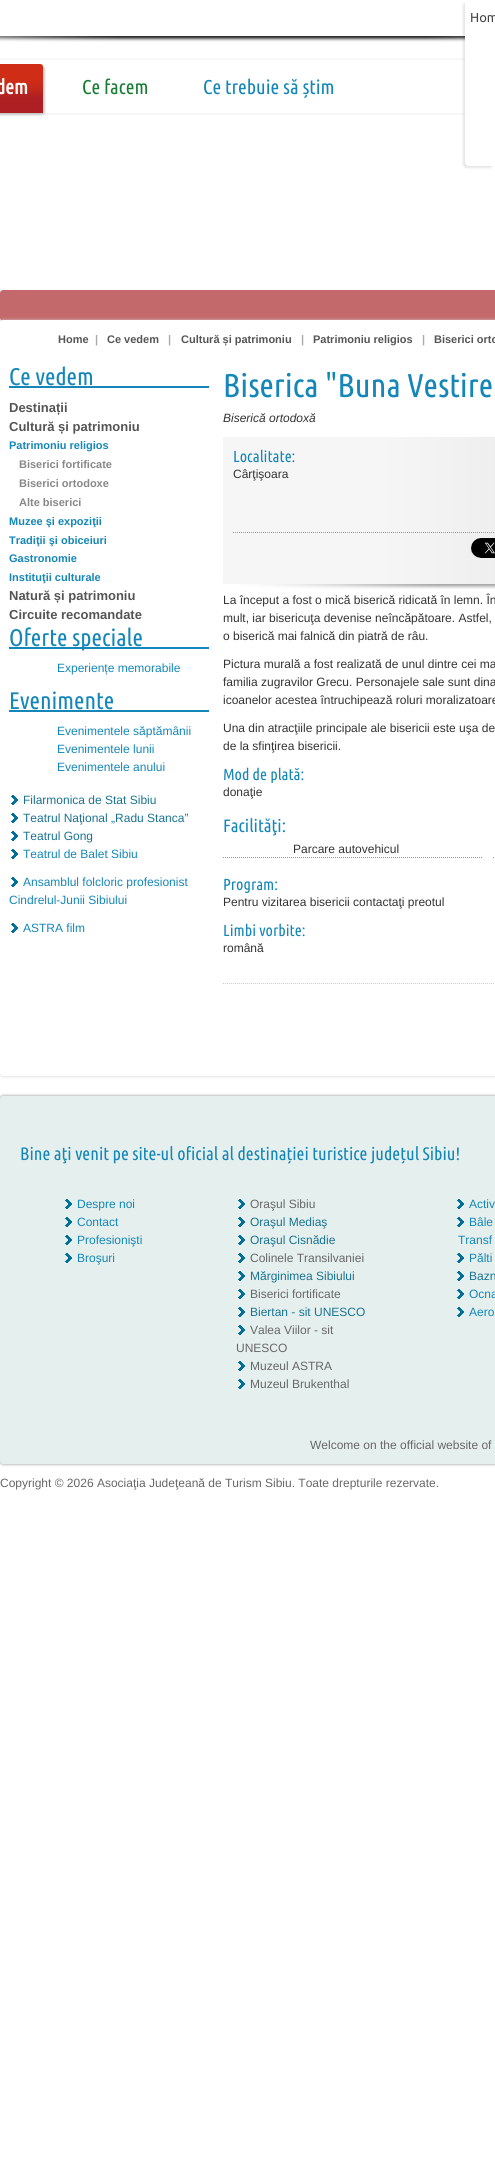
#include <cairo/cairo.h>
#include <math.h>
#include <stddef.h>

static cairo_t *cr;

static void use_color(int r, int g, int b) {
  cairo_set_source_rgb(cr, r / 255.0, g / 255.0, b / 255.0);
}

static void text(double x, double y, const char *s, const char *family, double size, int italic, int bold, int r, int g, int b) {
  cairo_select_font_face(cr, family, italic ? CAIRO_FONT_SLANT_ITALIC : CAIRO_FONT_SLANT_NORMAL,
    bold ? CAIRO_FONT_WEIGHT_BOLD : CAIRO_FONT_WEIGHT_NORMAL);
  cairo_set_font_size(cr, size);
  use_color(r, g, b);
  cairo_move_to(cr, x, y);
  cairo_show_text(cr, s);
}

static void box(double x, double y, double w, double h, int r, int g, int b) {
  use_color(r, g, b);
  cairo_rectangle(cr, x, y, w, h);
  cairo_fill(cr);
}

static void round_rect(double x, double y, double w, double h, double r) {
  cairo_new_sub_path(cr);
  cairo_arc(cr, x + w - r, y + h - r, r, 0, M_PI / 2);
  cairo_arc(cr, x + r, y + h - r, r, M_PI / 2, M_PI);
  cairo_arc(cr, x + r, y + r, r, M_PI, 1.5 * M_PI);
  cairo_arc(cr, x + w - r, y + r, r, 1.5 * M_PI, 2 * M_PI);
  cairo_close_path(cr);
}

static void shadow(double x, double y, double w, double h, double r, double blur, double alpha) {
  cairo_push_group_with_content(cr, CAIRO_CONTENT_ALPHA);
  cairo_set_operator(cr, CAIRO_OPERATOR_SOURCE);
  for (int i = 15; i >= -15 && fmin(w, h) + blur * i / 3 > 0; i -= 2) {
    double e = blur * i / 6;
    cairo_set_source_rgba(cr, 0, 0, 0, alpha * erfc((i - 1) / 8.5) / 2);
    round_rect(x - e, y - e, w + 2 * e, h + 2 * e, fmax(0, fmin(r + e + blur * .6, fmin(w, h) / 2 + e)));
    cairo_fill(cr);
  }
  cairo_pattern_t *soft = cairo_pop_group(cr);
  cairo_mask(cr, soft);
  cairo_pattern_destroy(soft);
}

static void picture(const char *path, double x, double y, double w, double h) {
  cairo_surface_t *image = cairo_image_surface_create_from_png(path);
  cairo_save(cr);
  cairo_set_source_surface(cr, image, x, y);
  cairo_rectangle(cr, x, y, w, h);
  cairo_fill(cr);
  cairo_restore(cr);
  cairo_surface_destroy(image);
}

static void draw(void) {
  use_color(255, 255, 255);
  cairo_paint(cr);
  picture("img_01.png", 0, 36, 465, 6);
  picture("img_02.png", 0, 58, 465, 57);
  use_color(0, 0, 0);
  shadow(463, 2, 30, 166, 4, 1, 0.1);
  use_color(255, 255, 255);
  cairo_new_path(cr);
  cairo_move_to(cr, 465, 0);
  cairo_line_to(cr, 495, 0);
  cairo_line_to(cr, 495, 166);
  cairo_line_to(cr, 469, 166);
  cairo_curve_to(cr, 467, 166, 465, 164, 465, 162);
  cairo_close_path(cr);
  cairo_fill(cr);
  use_color(0, 0, 0);
  shadow(-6, 66, 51, 49, 3, 1, 0.2);
  picture("img_03.png", 0, 64, 43, 49);
  use_color(196, 105, 107);
  round_rect(0, 290, 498, 31, 3);
  cairo_fill(cr);
  use_color(204, 204, 204);
  shadow(0, 320, 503, 756, 3, 1.5, 1);
  use_color(255, 255, 255);
  round_rect(0, 320, 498, 756, 3);
  cairo_fill(cr);
  box(9, 386, 200, 2, 20, 135, 184);
  box(9, 647, 200, 2, 20, 135, 184);
  box(9, 710, 200, 2, 20, 135, 184);
  picture("img_04.png", 11, 795, 7, 10);
  picture("img_04.png", 11, 813, 7, 10);
  picture("img_04.png", 11, 831, 7, 10);
  picture("img_04.png", 11, 849, 7, 10);
  picture("img_04.png", 11, 877, 7, 10);
  picture("img_04.png", 11, 923, 7, 10);
  picture("img_05.png", 223, 437, 272, 152);
  cairo_new_path(cr);
  cairo_move_to(cr, 233, 532.5);
  cairo_line_to(cr, 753, 532.5);
  use_color(153, 153, 153);
  cairo_set_line_width(cr, 1);
  cairo_set_dash(cr, (double[]){1, 1}, 2, 0);
  cairo_stroke(cr);
  picture("img_06.png", 471, 538, 24, 20);
  cairo_new_path(cr);
  cairo_move_to(cr, 223, 857.5);
  cairo_line_to(cr, 483, 857.5);
  cairo_stroke(cr);
  cairo_new_path(cr);
  cairo_move_to(cr, 493, 857.5);
  cairo_line_to(cr, 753, 857.5);
  cairo_stroke(cr);
  cairo_new_path(cr);
  cairo_move_to(cr, 223, 983.5);
  cairo_line_to(cr, 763, 983.5);
  use_color(204, 204, 204);
  cairo_stroke(cr);
  use_color(136, 136, 136);
  shadow(0, 1096, 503, 368, 3, 1.5, 1);
  use_color(229, 239, 237);
  round_rect(0, 1096, 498, 368, 3);
  cairo_fill(cr);
  picture("img_07.png", 65, 1199, 7, 10);
  picture("img_07.png", 65, 1217, 7, 10);
  picture("img_07.png", 65, 1235, 7, 10);
  picture("img_07.png", 65, 1253, 7, 10);
  picture("img_07.png", 238, 1199, 7, 10);
  picture("img_07.png", 238, 1217, 7, 10);
  picture("img_07.png", 238, 1235, 7, 10);
  picture("img_07.png", 238, 1253, 7, 10);
  picture("img_07.png", 238, 1271, 7, 10);
  picture("img_07.png", 238, 1289, 7, 10);
  picture("img_07.png", 238, 1307, 7, 10);
  picture("img_07.png", 238, 1325, 7, 10);
  picture("img_07.png", 238, 1361, 7, 10);
  picture("img_07.png", 238, 1379, 7, 10);
  picture("img_07.png", 457, 1199, 7, 10);
  picture("img_07.png", 457, 1217, 7, 10);
  picture("img_07.png", 457, 1253, 7, 10);
  picture("img_07.png", 457, 1271, 7, 10);
  picture("img_07.png", 457, 1289, 7, 10);
  picture("img_07.png", 457, 1307, 7, 10);
  text(470, 22, "Hom", "Ubuntu", 13, 0, 0, 68, 68, 68);
  text(-4, 94, "dem", "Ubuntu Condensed", 20, 0, 1, 255, 255, 255);
  text(82, 94, "Ce facem", "Ubuntu Condensed", 20, 0, 0, 24, 125, 52);
  text(203, 94, "Ce trebuie să știm", "Ubuntu Condensed", 20, 0, 0, 20, 135, 184);
  text(58, 343, "Home", "Liberation Sans", 11, 0, 1, 85, 85, 85);
  text(95, 343, "|", "Liberation Sans", 11, 0, 1, 170, 170, 170);
  text(107, 343, "Ce vedem", "Liberation Sans", 11, 0, 1, 85, 85, 85);
  text(168, 343, "|", "Liberation Sans", 11, 0, 1, 170, 170, 170);
  text(181, 343, "Cultură și patrimoniu", "Liberation Sans", 11, 0, 1, 85, 85, 85);
  text(301, 343, "|", "Liberation Sans", 11, 0, 1, 170, 170, 170);
  text(313, 343, "Patrimoniu religios", "Liberation Sans", 11, 0, 1, 85, 85, 85);
  text(422, 343, "|", "Liberation Sans", 11, 0, 1, 170, 170, 170);
  text(434, 343, "Biserici orto", "Liberation Sans", 11, 0, 1, 85, 85, 85);
  text(9, 385, "Ce vedem", "Ubuntu Condensed", 24, 0, 0, 20, 135, 184);
  text(9, 412, "Destinații", "Liberation Sans", 13, 0, 1, 85, 85, 85);
  text(9, 431, "Cultură și patrimoniu", "Liberation Sans", 13, 0, 1, 85, 85, 85);
  text(9, 449, "Patrimoniu religios", "Liberation Sans", 11, 0, 1, 20, 135, 184);
  text(19, 468, "Biserici fortificate", "Liberation Sans", 11, 0, 1, 136, 136, 136);
  text(19, 487, "Biserici ortodoxe", "Liberation Sans", 11, 0, 1, 136, 136, 136);
  text(19, 506, "Alte biserici", "Liberation Sans", 11, 0, 1, 136, 136, 136);
  text(9, 525, "Muzee şi expoziţii", "Liberation Sans", 11, 0, 1, 20, 135, 184);
  text(9, 544, "Tradiţii şi obiceiuri", "Liberation Sans", 11, 0, 1, 20, 135, 184);
  text(9, 562, "Gastronomie", "Liberation Sans", 11, 0, 1, 20, 135, 184);
  text(9, 581, "Instituţii culturale", "Liberation Sans", 11, 0, 1, 20, 135, 184);
  text(9, 600, "Natură și patrimoniu", "Liberation Sans", 13, 0, 1, 85, 85, 85);
  text(9, 619, "Circuite recomandate", "Liberation Sans", 13, 0, 1, 85, 85, 85);
  text(9, 646, "Oferte speciale", "Ubuntu Condensed", 24, 0, 0, 20, 135, 184);
  text(57, 672, "Experiențe memorabile", "Liberation Sans", 12, 0, 0, 20, 135, 184);
  text(9, 709, "Evenimente", "Ubuntu Condensed", 24, 0, 0, 20, 135, 184);
  text(57, 735, "Evenimentele săptămânii", "Liberation Sans", 12, 0, 0, 20, 135, 184);
  text(57, 753, "Evenimentele lunii", "Liberation Sans", 12, 0, 0, 20, 135, 184);
  text(57, 771, "Evenimentele anului", "Liberation Sans", 12, 0, 0, 20, 135, 184);
  text(23, 804, "Filarmonica de Stat Sibiu", "Liberation Sans", 12, 0, 0, 26, 115, 145);
  text(23, 822, "Teatrul Naţional „Radu Stanca”", "Liberation Sans", 12, 0, 0, 26, 115, 145);
  text(23, 840, "Teatrul Gong", "Liberation Sans", 12, 0, 0, 26, 115, 145);
  text(23, 858, "Teatrul de Balet Sibiu", "Liberation Sans", 12, 0, 0, 20, 135, 184);
  text(23, 886, "Ansamblul folcloric profesionist", "Liberation Sans", 12, 0, 0, 20, 135, 184);
  text(9, 904, "Cindrelul-Junii Sibiului", "Liberation Sans", 12, 0, 0, 20, 135, 184);
  text(23, 932, "ASTRA film", "Liberation Sans", 12, 0, 0, 20, 135, 184);
  text(223, 397, "Biserica \"Buna Vestire", "Ubuntu Condensed", 33, 0, 0, 20, 135, 184);
  text(223, 422, "Biserică ortodoxă", "Liberation Sans", 12, 1, 0, 51, 51, 51);
  text(233, 462, "Localitate:", "Ubuntu Condensed", 16, 0, 0, 20, 135, 184);
  text(233, 478, "Cârţişoara", "Liberation Sans", 12, 0, 0, 51, 51, 51);
  text(223, 604, "La început a fost o mică biserică ridicată în lemn. În", "Liberation Sans", 12, 0, 0, 51, 51, 51);
  text(223, 622, "mult, iar bisericuţa devenise neîncăpătoare. Astfel,", "Liberation Sans", 12, 0, 0, 51, 51, 51);
  text(223, 640, "o biserică mai falnică din piatră de râu.", "Liberation Sans", 12, 0, 0, 51, 51, 51);
  text(223, 668, "Pictura murală a fost realizată de unul dintre cei ma", "Liberation Sans", 12, 0, 0, 51, 51, 51);
  text(223, 686, "familia zugravilor Grecu. Personajele sale sunt dina", "Liberation Sans", 12, 0, 0, 51, 51, 51);
  text(223, 704, "icoanelor acestea întruchipează roluri moralizatoare", "Liberation Sans", 12, 0, 0, 51, 51, 51);
  text(223, 732, "Una din atracţiile principale ale bisericii este uşa de", "Liberation Sans", 12, 0, 0, 51, 51, 51);
  text(223, 750, "de la sfinţirea bisericii.", "Liberation Sans", 12, 0, 0, 51, 51, 51);
  text(223, 780, "Mod de plată:", "Ubuntu Condensed", 16, 0, 0, 20, 135, 184);
  text(223, 796, "donaţie", "Liberation Sans", 12, 0, 0, 51, 51, 51);
  text(223, 832, "Facilităţi:", "Ubuntu Condensed", 18, 0, 0, 20, 135, 184);
  text(293, 853, "Parcare autovehicul", "Liberation Sans", 12, 0, 0, 51, 51, 51);
  text(223, 890, "Program:", "Ubuntu Condensed", 16, 0, 0, 20, 135, 184);
  text(223, 906, "Pentru vizitarea bisericii contactaţi preotul", "Liberation Sans", 12, 0, 0, 51, 51, 51);
  text(223, 936, "Limbi vorbite:", "Ubuntu Condensed", 16, 0, 0, 20, 135, 184);
  text(223, 952, "română", "Liberation Sans", 12, 0, 0, 51, 51, 51);
  text(20, 1160, "Bine aţi venit pe site-ul oficial al destinației turistice județul Sibiu!", "Ubuntu Condensed", 18, 0, 0, 20, 135, 184);
  text(77, 1208, "Despre noi", "Liberation Sans", 12, 0, 0, 20, 135, 184);
  text(77, 1226, "Contact", "Liberation Sans", 12, 0, 0, 20, 135, 184);
  text(77, 1244, "Profesionişti", "Liberation Sans", 12, 0, 0, 20, 135, 184);
  text(77, 1262, "Broşuri", "Liberation Sans", 12, 0, 0, 20, 135, 184);
  text(250, 1208, "Oraşul Sibiu", "Liberation Sans", 12, 0, 0, 103, 103, 103);
  text(250, 1226, "Oraşul Mediaş", "Liberation Sans", 12, 0, 0, 26, 115, 145);
  text(250, 1244, "Oraşul Cisnădie", "Liberation Sans", 12, 0, 0, 26, 115, 145);
  text(250, 1262, "Colinele Transilvaniei", "Liberation Sans", 12, 0, 0, 103, 103, 103);
  text(250, 1280, "Mărginimea Sibiului", "Liberation Sans", 12, 0, 0, 26, 115, 145);
  text(250, 1298, "Biserici fortificate", "Liberation Sans", 12, 0, 0, 103, 103, 103);
  text(250, 1316, "Biertan - sit UNESCO", "Liberation Sans", 12, 0, 0, 26, 115, 145);
  text(250, 1334, "Valea Viilor - sit", "Liberation Sans", 12, 0, 0, 103, 103, 103);
  text(236, 1352, "UNESCO", "Liberation Sans", 12, 0, 0, 103, 103, 103);
  text(250, 1370, "Muzeul ASTRA", "Liberation Sans", 12, 0, 0, 103, 103, 103);
  text(250, 1388, "Muzeul Brukenthal", "Liberation Sans", 12, 0, 0, 103, 103, 103);
  text(469, 1208, "Activ", "Liberation Sans", 12, 0, 0, 20, 135, 184);
  text(469, 1226, "Bâle", "Liberation Sans", 12, 0, 0, 20, 135, 184);
  text(458, 1244, "Transf", "Liberation Sans", 12, 0, 0, 20, 135, 184);
  text(469, 1262, "Pălti", "Liberation Sans", 12, 0, 0, 20, 135, 184);
  text(469, 1280, "Bazn", "Liberation Sans", 12, 0, 0, 26, 115, 145);
  text(469, 1298, "Ocna", "Liberation Sans", 12, 0, 0, 20, 135, 184);
  text(469, 1316, "Aero", "Liberation Sans", 12, 0, 0, 20, 135, 184);
  text(310, 1449, "Welcome on the official website of", "Liberation Sans", 12, 0, 0, 103, 103, 103);
  text(0, 1487, "Copyright © 2026 Asociaţia Judeţeană de Turism Sibiu. Toate drepturile rezervate.", "Liberation Sans", 12, 0, 0, 103, 103, 103);
}

int main(void) {
  cairo_surface_t *surface = cairo_image_surface_create(CAIRO_FORMAT_RGB24, 495, 2184);
  cr = cairo_create(surface);
  cairo_font_options_t *options = cairo_font_options_create();
  cairo_font_options_set_hint_metrics(options, CAIRO_HINT_METRICS_OFF);
  cairo_font_options_set_hint_style(options, CAIRO_HINT_STYLE_NONE);
  cairo_set_font_options(cr, options);
  cairo_set_miter_limit(cr, 4);
  draw();
  cairo_surface_write_to_png(surface, "out.png");
  cairo_font_options_destroy(options);
  cairo_destroy(cr);
  cairo_surface_destroy(surface);
  return 0;
}
